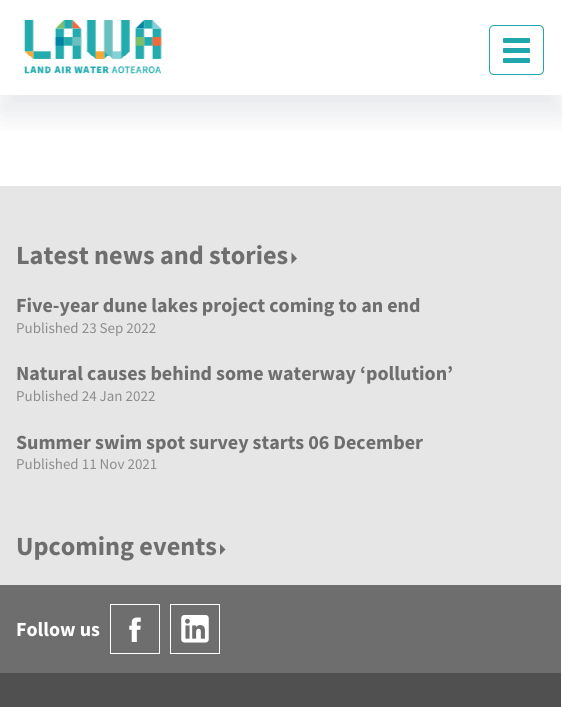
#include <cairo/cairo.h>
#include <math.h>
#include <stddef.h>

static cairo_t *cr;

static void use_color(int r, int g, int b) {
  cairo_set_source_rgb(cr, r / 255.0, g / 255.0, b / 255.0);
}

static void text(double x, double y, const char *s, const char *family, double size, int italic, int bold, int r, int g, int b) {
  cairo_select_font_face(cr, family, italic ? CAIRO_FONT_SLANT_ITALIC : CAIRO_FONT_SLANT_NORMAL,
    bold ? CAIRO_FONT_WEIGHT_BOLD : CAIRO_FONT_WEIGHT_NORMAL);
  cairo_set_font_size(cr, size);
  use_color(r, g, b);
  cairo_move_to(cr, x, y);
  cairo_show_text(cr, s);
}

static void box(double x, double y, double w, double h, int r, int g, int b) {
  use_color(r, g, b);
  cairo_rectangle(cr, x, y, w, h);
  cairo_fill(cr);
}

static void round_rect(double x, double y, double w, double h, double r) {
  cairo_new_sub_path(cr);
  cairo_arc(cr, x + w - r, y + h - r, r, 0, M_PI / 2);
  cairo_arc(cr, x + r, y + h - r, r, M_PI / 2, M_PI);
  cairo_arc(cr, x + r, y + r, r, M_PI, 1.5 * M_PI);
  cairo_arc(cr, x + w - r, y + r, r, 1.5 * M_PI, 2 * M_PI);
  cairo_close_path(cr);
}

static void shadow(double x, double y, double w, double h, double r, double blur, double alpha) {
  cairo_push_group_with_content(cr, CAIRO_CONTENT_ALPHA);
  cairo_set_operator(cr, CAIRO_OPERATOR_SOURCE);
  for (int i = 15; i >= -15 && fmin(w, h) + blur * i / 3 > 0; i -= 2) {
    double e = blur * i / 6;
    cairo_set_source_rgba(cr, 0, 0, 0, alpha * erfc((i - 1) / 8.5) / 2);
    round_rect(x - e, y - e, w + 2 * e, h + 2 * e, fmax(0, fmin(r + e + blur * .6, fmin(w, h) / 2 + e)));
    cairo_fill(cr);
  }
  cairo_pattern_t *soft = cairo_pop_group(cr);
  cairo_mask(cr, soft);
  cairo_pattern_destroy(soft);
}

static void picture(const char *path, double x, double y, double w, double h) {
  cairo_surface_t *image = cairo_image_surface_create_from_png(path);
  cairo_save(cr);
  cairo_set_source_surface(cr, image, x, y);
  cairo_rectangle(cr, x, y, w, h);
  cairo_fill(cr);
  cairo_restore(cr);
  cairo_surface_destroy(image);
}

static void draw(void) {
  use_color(255, 255, 255);
  cairo_paint(cr);
  cairo_save(cr);
  cairo_rectangle(cr, 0, 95, 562, 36);
  cairo_clip(cr);
  use_color(82, 97, 115);
  shadow(0, 20, 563, 95, 0, 15, 0.14);
  cairo_restore(cr);
  picture("img_01.png", 24, 19, 138, 55);
  round_rect(489.5, 25.5, 54, 49, 4.5);
  use_color(32, 167, 173);
  cairo_set_line_width(cr, 1);
  cairo_stroke(cr);
  round_rect(503, 38, 27, 5, 1);
  cairo_fill(cr);
  round_rect(503, 48, 27, 5, 1);
  cairo_fill(cr);
  round_rect(503, 58, 27, 5, 1);
  cairo_fill(cr);
  box(0, 186, 561, 399, 231, 230, 230);
  use_color(110, 110, 110);
  cairo_new_path(cr);
  cairo_move_to(cr, 291.5, 264);
  cairo_line_to(cr, 297, 258.5);
  cairo_line_to(cr, 291.5, 252.5);
  cairo_close_path(cr);
  cairo_fill(cr);
  cairo_new_path(cr);
  cairo_move_to(cr, 220, 555);
  cairo_line_to(cr, 225.5, 549.5);
  cairo_line_to(cr, 220, 544);
  cairo_close_path(cr);
  cairo_fill(cr);
  box(0, 673, 561, 34, 80, 80, 80);
  box(0, 585, 561, 88, 110, 110, 110);
  cairo_rectangle(cr, 110.5, 604.5, 49, 49);
  use_color(255, 255, 255);
  cairo_stroke(cr);
  picture("img_02.png", 129, 617, 12, 25);
  cairo_rectangle(cr, 170.5, 604.5, 49, 49);
  cairo_stroke(cr);
  picture("img_03.png", 181, 615, 28, 28);
  text(16, 264, "Latest news and stories", "Source Sans Pro", 26.25, 0, 1, 110, 110, 110);
  text(16, 312, "Five-year dune lakes project coming to an end", "Source Sans Pro", 20, 0, 1, 110, 110, 110);
  text(16, 333, "Published 23 Sep 2022", "Source Sans Pro", 15, 0, 0, 141, 141, 141);
  text(16, 380, "Natural causes behind some waterway ‘pollution’", "Source Sans Pro", 20, 0, 1, 110, 110, 110);
  text(16, 401, "Published 24 Jan 2022", "Source Sans Pro", 15, 0, 0, 141, 141, 141);
  text(16, 449, "Summer swim spot survey starts 06 December", "Source Sans Pro", 20, 0, 1, 110, 110, 110);
  text(16, 469, "Published 11 Nov 2021", "Source Sans Pro", 15, 0, 0, 141, 141, 141);
  text(16, 555, "Upcoming events", "Source Sans Pro", 26.25, 0, 1, 110, 110, 110);
  text(16, 636, "Follow us", "Source Sans Pro", 20, 0, 1, 255, 255, 255);
}

int main(void) {
  cairo_surface_t *surface = cairo_image_surface_create(CAIRO_FORMAT_RGB24, 562, 707);
  cr = cairo_create(surface);
  cairo_font_options_t *options = cairo_font_options_create();
  cairo_font_options_set_hint_metrics(options, CAIRO_HINT_METRICS_OFF);
  cairo_font_options_set_hint_style(options, CAIRO_HINT_STYLE_NONE);
  cairo_set_font_options(cr, options);
  cairo_set_miter_limit(cr, 4);
  draw();
  cairo_surface_write_to_png(surface, "out.png");
  cairo_font_options_destroy(options);
  cairo_destroy(cr);
  cairo_surface_destroy(surface);
  return 0;
}
